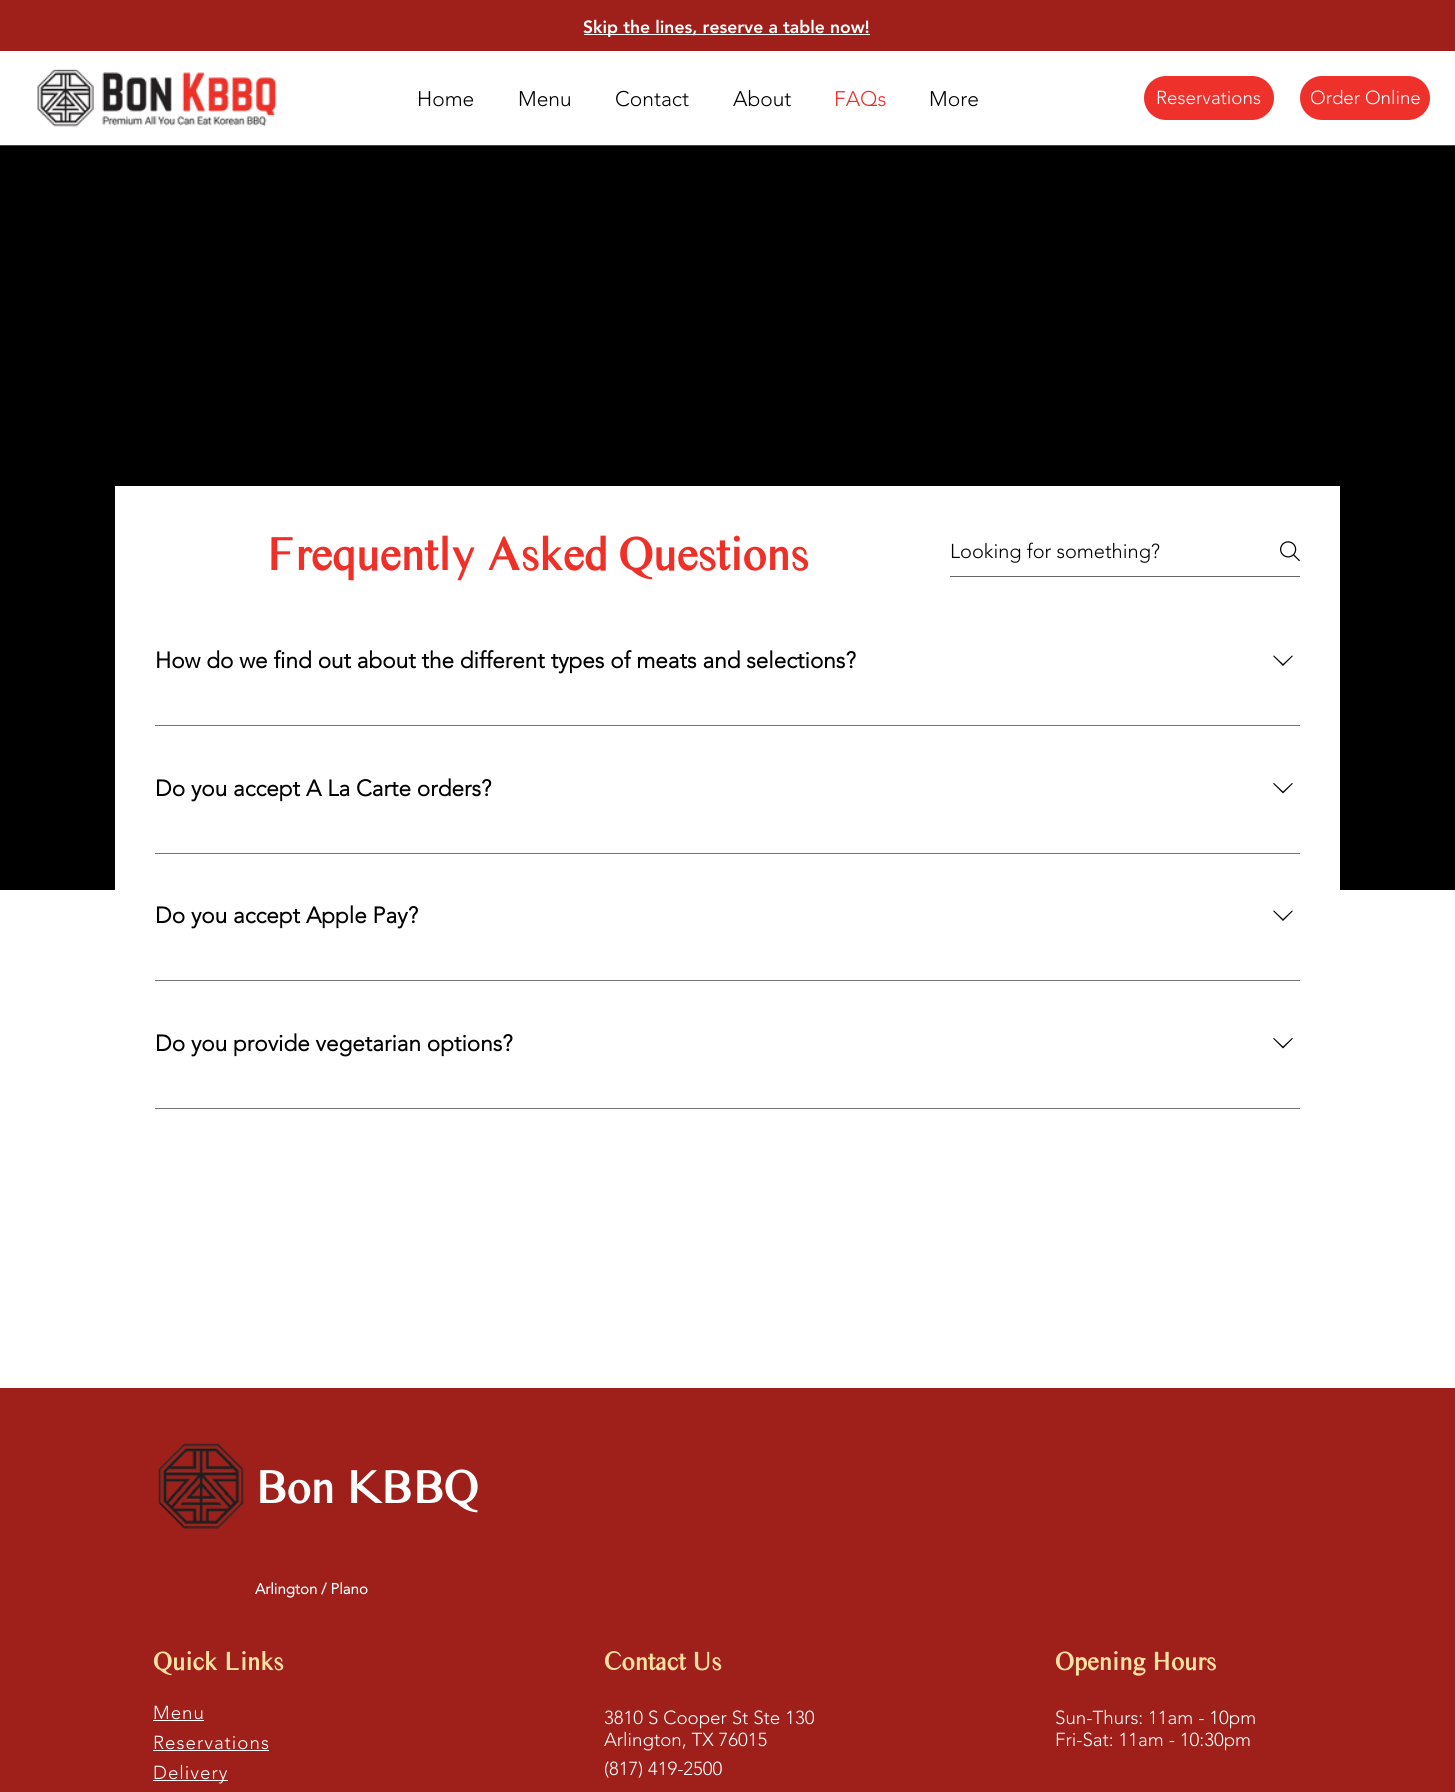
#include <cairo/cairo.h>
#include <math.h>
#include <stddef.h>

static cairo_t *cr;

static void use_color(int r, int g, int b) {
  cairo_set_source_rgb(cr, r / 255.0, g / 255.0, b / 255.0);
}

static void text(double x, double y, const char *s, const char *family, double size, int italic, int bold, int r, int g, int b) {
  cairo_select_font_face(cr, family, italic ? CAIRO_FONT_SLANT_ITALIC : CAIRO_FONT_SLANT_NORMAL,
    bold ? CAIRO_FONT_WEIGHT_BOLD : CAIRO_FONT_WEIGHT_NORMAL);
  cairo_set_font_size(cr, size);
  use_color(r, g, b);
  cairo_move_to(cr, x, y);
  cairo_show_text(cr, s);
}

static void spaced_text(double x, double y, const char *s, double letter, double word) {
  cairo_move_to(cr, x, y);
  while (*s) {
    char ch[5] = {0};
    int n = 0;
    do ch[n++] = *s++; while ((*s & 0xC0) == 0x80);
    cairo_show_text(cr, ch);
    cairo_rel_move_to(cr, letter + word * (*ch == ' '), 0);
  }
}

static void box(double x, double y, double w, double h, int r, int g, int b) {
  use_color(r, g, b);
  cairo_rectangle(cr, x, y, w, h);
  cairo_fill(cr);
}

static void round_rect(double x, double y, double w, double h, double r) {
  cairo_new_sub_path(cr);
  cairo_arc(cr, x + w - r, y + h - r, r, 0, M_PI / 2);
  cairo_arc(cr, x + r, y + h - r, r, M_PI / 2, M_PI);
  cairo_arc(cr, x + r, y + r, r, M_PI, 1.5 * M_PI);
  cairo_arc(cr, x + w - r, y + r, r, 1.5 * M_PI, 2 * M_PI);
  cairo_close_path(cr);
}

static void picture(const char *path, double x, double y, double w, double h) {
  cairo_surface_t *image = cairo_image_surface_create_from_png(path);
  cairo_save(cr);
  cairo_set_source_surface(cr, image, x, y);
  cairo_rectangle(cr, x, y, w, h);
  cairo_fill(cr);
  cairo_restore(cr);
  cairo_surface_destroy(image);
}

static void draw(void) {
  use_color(255, 255, 255);
  cairo_paint(cr);
  box(0, 0, 1455, 51, 159, 32, 27);
  box(584, 34, 286, 1, 255, 255, 255);
  picture("img_01.png", 37, 69, 240, 58);
  use_color(238, 49, 43);
  round_rect(1144, 76, 130, 44, 22);
  cairo_fill(cr);
  round_rect(1300, 76, 130, 44, 22);
  cairo_fill(cr);
  box(0, 145, 1455, 1, 159, 32, 27);
  box(0, 146, 1455, 744, 0, 0, 0);
  box(115, 486, 1225, 404, 255, 255, 255);
  box(950, 576, 350, 1, 102, 102, 102);
  picture("img_02.png", 1280, 541, 20, 21);
  use_color(0, 0, 0);
  cairo_set_fill_rule(cr, CAIRO_FILL_RULE_EVEN_ODD);
  cairo_new_path(cr);
  cairo_move_to(cr, 1292, 655.5);
  cairo_line_to(cr, 1293, 656);
  cairo_line_to(cr, 1283, 666);
  cairo_line_to(cr, 1273, 656);
  cairo_line_to(cr, 1274, 655.5);
  cairo_line_to(cr, 1283, 664);
  cairo_close_path(cr);
  cairo_fill(cr);
  box(155, 725, 1145, 1, 117, 117, 117);
  use_color(0, 0, 0);
  cairo_new_path(cr);
  cairo_move_to(cr, 1292, 783);
  cairo_line_to(cr, 1293, 783.5);
  cairo_line_to(cr, 1283, 793.5);
  cairo_line_to(cr, 1273, 783.5);
  cairo_line_to(cr, 1274, 783);
  cairo_line_to(cr, 1283, 791.5);
  cairo_close_path(cr);
  cairo_fill(cr);
  box(155, 853, 1145, 1, 117, 117, 117);
  use_color(0, 0, 0);
  cairo_new_path(cr);
  cairo_move_to(cr, 1292, 910.5);
  cairo_line_to(cr, 1293, 911);
  cairo_line_to(cr, 1283, 921);
  cairo_line_to(cr, 1273, 911);
  cairo_line_to(cr, 1274, 910.5);
  cairo_line_to(cr, 1283, 919);
  cairo_close_path(cr);
  cairo_fill(cr);
  box(155, 980, 1145, 1, 117, 117, 117);
  use_color(0, 0, 0);
  cairo_new_path(cr);
  cairo_move_to(cr, 1292, 1038);
  cairo_line_to(cr, 1293, 1038.5);
  cairo_line_to(cr, 1283, 1048.5);
  cairo_line_to(cr, 1273, 1038.5);
  cairo_line_to(cr, 1274, 1038);
  cairo_line_to(cr, 1283, 1046.5);
  cairo_close_path(cr);
  cairo_fill(cr);
  box(155, 1108, 1145, 1, 117, 117, 117);
  box(0, 1388, 1455, 404, 159, 32, 27);
  picture("img_03.png", 158, 1443, 86, 86);
  box(153, 1720, 51, 1, 255, 255, 255);
  box(153, 1750, 116, 1, 255, 255, 255);
  box(153, 1780, 75, 1, 255, 255, 255);
  text(583, 33, "Skip the lines, reserve a table now!", "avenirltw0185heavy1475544 Black", 17.5, 0, 0, 255, 255, 255);
  text(417, 106, "Home", "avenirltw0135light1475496 Light", 21, 0, 0, 0, 0, 0);
  text(518, 106, "Menu", "avenirltw0135light1475496 Light", 21, 0, 0, 0, 0, 0);
  text(615, 106, "Contact", "avenirltw0135light1475496 Light", 21, 0, 0, 0, 0, 0);
  text(733, 106, "About", "avenirltw0135light1475496 Light", 21, 0, 0, 0, 0, 0);
  text(834, 106, "FAQs", "avenirltw0135light1475496 Light", 21, 0, 0, 238, 48, 40);
  text(929, 106, "More", "avenirltw0135light1475496 Light", 21, 0, 0, 0, 0, 0);
  text(1156, 104, "Reservations", "avenirltw0135light1475496 Light", 18.75, 0, 0, 255, 255, 255);
  text(1310, 104, "Order Online", "avenirltw0135light1475496 Light", 18.75, 0, 0, 255, 255, 255);
  text(266, 570, "Frequently Asked Questions", "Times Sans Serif", 47.5, 0, 1, 238, 48, 40);
  text(950, 558, "Looking for something?", "avenirltw0135light1475496 Light", 20, 0, 0, 0, 0, 0);
  text(155, 668, "How do we find out about the different types of meats and selections?", "avenirltw0135light1475496", 22.5, 0, 1, 0, 0, 0);
  text(155, 796, "Do you accept A La Carte orders?", "avenirltw0135light1475496", 22.5, 0, 1, 0, 0, 0);
  text(155, 923, "Do you accept Apple Pay?", "avenirltw0135light1475496", 22.5, 0, 1, 0, 0, 0);
  text(155, 1051, "Do you provide vegetarian options?", "avenirltw0135light1475496", 22.5, 0, 1, 0, 0, 0);
  text(255, 1503, "Bon KBBQ", "Times Sans Serif", 47.5, 0, 1, 255, 255, 255);
  text(255, 1594, "Arlington / Plano", "avenirltw0135light1475496", 15, 0, 1, 255, 255, 255);
  text(153, 1670, "Quick Links", "Times Sans Serif", 26.25, 0, 1, 255, 226, 163);
  text(604, 1670, "Contact Us", "Times Sans Serif", 26.25, 0, 1, 255, 226, 163);
  text(1055, 1670, "Opening Hours", "Times Sans Serif", 26.25, 0, 1, 255, 226, 163);
  cairo_select_font_face(cr, "avenirltw0135light1475496 Light", CAIRO_FONT_SLANT_NORMAL, CAIRO_FONT_WEIGHT_NORMAL);
  cairo_set_font_size(cr, 18.75);
  use_color(255, 255, 255);
  spaced_text(153, 1719, "Menu", 1, 0);
  spaced_text(153, 1749, "Reservations", 1, 0);
  spaced_text(153, 1779, "Delivery", 1, 0);
  text(604, 1724, "3810 S Cooper St Ste 130", "avenirltw0135light1475496 Light", 18.75, 0, 0, 255, 255, 255);
  text(604, 1746, "Arlington, TX 76015", "avenirltw0135light1475496 Light", 18.75, 0, 0, 255, 255, 255);
  text(1055, 1724, "Sun-Thurs: 11am - 10pm", "avenirltw0135light1475496 Light", 18.75, 0, 0, 255, 255, 255);
  text(1055, 1746, "Fri-Sat: 11am - 10:30pm", "avenirltw0135light1475496 Light", 18.75, 0, 0, 255, 255, 255);
  text(604, 1775, "(817) 419-2500", "avenirltw0135light1475496 Light", 18.75, 0, 0, 255, 255, 255);
}

int main(void) {
  cairo_surface_t *surface = cairo_image_surface_create(CAIRO_FORMAT_RGB24, 1455, 1792);
  cr = cairo_create(surface);
  cairo_font_options_t *options = cairo_font_options_create();
  cairo_font_options_set_hint_metrics(options, CAIRO_HINT_METRICS_OFF);
  cairo_font_options_set_hint_style(options, CAIRO_HINT_STYLE_NONE);
  cairo_set_font_options(cr, options);
  cairo_set_miter_limit(cr, 4);
  draw();
  cairo_surface_write_to_png(surface, "out.png");
  cairo_font_options_destroy(options);
  cairo_destroy(cr);
  cairo_surface_destroy(surface);
  return 0;
}
